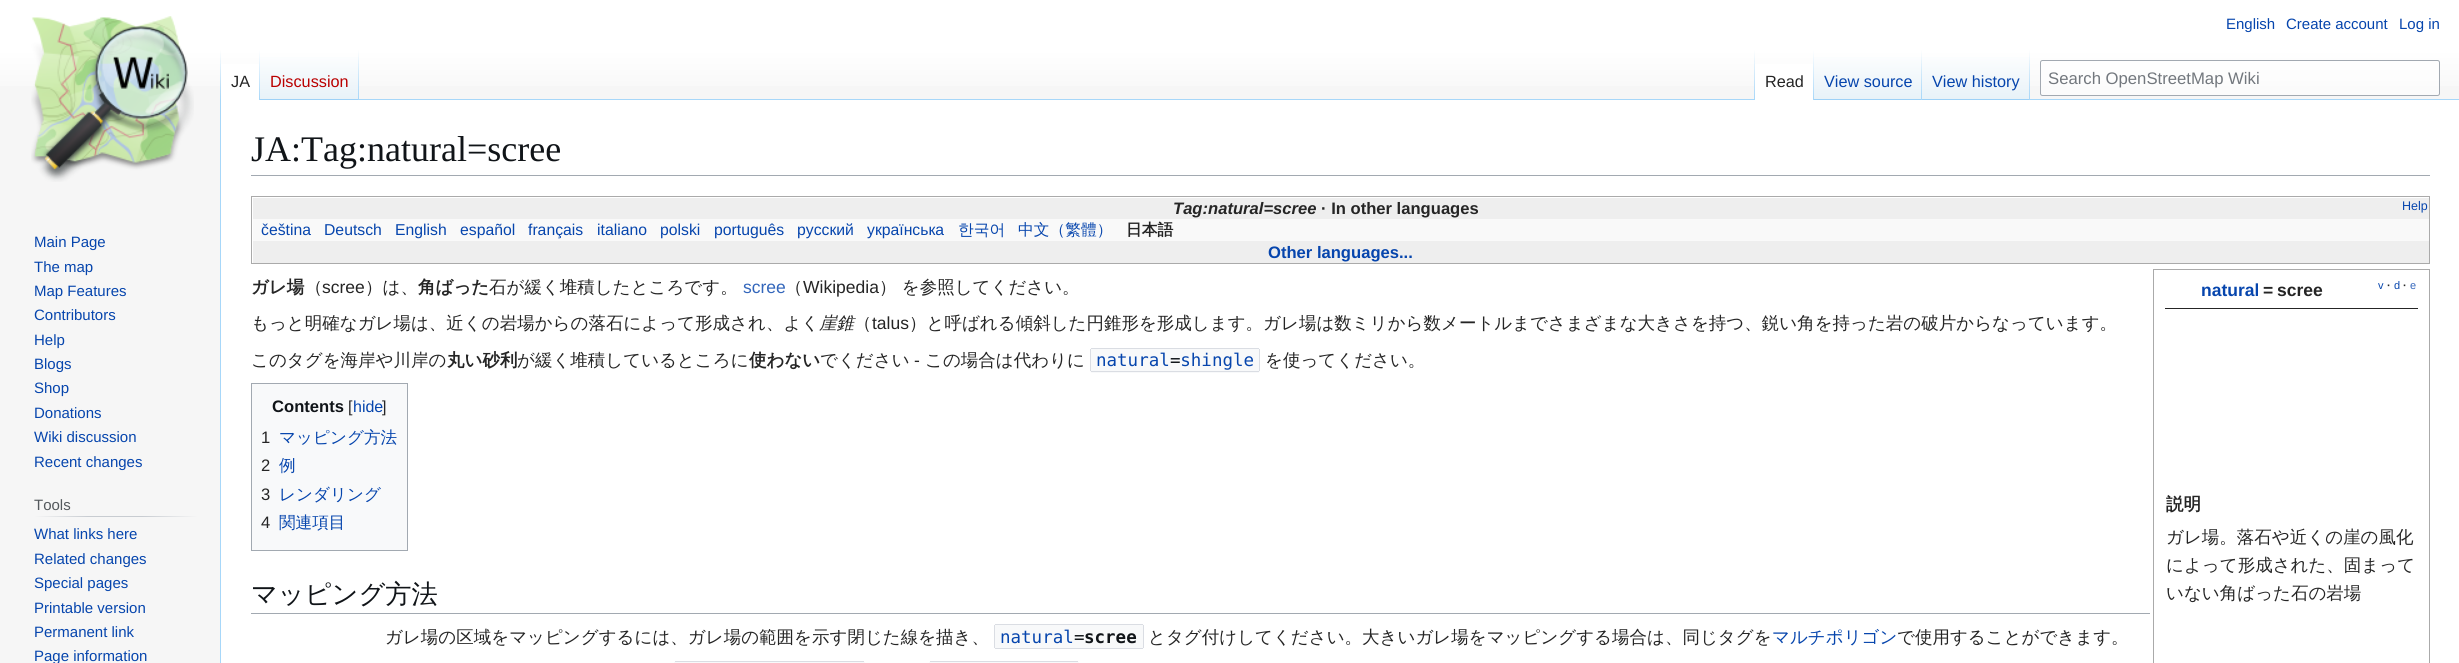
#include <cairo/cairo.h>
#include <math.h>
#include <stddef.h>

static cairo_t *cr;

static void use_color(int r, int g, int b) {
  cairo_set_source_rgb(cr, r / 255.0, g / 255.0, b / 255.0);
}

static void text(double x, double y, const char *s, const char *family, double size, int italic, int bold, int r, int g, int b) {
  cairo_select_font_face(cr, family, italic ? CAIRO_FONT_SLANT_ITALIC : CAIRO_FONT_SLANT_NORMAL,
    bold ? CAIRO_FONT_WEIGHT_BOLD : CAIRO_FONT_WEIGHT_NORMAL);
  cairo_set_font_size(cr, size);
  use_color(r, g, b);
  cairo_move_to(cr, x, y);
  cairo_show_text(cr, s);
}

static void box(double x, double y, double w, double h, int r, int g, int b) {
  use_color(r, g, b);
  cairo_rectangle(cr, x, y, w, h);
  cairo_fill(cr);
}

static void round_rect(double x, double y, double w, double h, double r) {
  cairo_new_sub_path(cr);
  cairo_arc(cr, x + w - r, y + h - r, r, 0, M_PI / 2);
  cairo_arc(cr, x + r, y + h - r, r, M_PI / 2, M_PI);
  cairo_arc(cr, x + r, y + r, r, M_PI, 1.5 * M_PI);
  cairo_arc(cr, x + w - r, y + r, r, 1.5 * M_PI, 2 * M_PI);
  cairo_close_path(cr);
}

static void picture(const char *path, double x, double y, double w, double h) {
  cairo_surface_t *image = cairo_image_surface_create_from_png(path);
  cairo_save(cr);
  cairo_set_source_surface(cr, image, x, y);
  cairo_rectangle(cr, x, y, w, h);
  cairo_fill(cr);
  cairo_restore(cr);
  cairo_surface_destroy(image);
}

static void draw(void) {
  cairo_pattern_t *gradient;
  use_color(246, 246, 246);
  cairo_paint(cr);
  gradient = cairo_pattern_create_linear(1230, 0, 1230, 100);
  cairo_pattern_add_color_stop_rgba(gradient, 0.5, 1, 1, 1, 1);
  cairo_pattern_add_color_stop_rgba(gradient, 1, 0.965, 0.965, 0.965, 1);
  cairo_set_source(cr, gradient);
  cairo_pattern_destroy(gradient);
  cairo_rectangle(cr, 0, 0, 2459, 86);
  cairo_fill(cr);
  box(220, 99, 1, 564, 167, 215, 249);
  gradient = cairo_pattern_create_linear(221, 50, 221, 100);
  cairo_pattern_add_color_stop_rgba(gradient, 0, 0.655, 0.843, 0.976, 0);
  cairo_pattern_add_color_stop_rgba(gradient, 1, 0.655, 0.843, 0.976, 1);
  cairo_set_source(cr, gradient);
  cairo_pattern_destroy(gradient);
  cairo_rectangle(cr, 220, 50, 1, 50);
  cairo_fill(cr);
  box(221, 64, 38, 36, 255, 255, 255);
  gradient = cairo_pattern_create_linear(259, 50, 259, 100);
  cairo_pattern_add_color_stop_rgba(gradient, 0, 1, 1, 1, 1);
  cairo_pattern_add_color_stop_rgba(gradient, 1, 0.655, 0.843, 0.976, 1);
  cairo_set_source(cr, gradient);
  cairo_pattern_destroy(gradient);
  cairo_rectangle(cr, 259, 50, 1, 50);
  cairo_fill(cr);
  gradient = cairo_pattern_create_linear(309, 100, 309, 50);
  cairo_pattern_add_color_stop_rgba(gradient, 0, 0.467, 0.757, 0.965, 1);
  cairo_pattern_add_color_stop_rgba(gradient, 0.03, 0.91, 0.949, 0.973, 1);
  cairo_pattern_add_color_stop_rgba(gradient, 1, 1, 1, 1, 1);
  cairo_set_source(cr, gradient);
  cairo_pattern_destroy(gradient);
  cairo_rectangle(cr, 260, 57, 99, 43);
  cairo_fill(cr);
  gradient = cairo_pattern_create_linear(358, 50, 358, 100);
  cairo_pattern_add_color_stop_rgba(gradient, 0, 0.655, 0.843, 0.976, 0);
  cairo_pattern_add_color_stop_rgba(gradient, 1, 0.655, 0.843, 0.976, 1);
  cairo_set_source(cr, gradient);
  cairo_pattern_destroy(gradient);
  cairo_rectangle(cr, 358, 50, 1, 50);
  cairo_fill(cr);
  box(359, 99, 2100, 1, 167, 215, 249);
  gradient = cairo_pattern_create_linear(1754, 50, 1754, 100);
  cairo_pattern_add_color_stop_rgba(gradient, 0, 0.655, 0.843, 0.976, 0);
  cairo_pattern_add_color_stop_rgba(gradient, 1, 0.655, 0.843, 0.976, 1);
  cairo_set_source(cr, gradient);
  cairo_pattern_destroy(gradient);
  cairo_rectangle(cr, 1754, 50, 1, 50);
  cairo_fill(cr);
  box(1755, 64, 58, 36, 255, 255, 255);
  gradient = cairo_pattern_create_linear(1813, 50, 1813, 100);
  cairo_pattern_add_color_stop_rgba(gradient, 0, 1, 1, 1, 1);
  cairo_pattern_add_color_stop_rgba(gradient, 1, 0.655, 0.843, 0.976, 1);
  cairo_set_source(cr, gradient);
  cairo_pattern_destroy(gradient);
  cairo_rectangle(cr, 1813, 50, 1, 50);
  cairo_fill(cr);
  gradient = cairo_pattern_create_linear(1868, 100, 1868, 50);
  cairo_pattern_add_color_stop_rgba(gradient, 0, 0.467, 0.757, 0.965, 1);
  cairo_pattern_add_color_stop_rgba(gradient, 0.03, 0.91, 0.949, 0.973, 1);
  cairo_pattern_add_color_stop_rgba(gradient, 1, 1, 1, 1, 1);
  cairo_set_source(cr, gradient);
  cairo_pattern_destroy(gradient);
  cairo_rectangle(cr, 1814, 57, 109, 43);
  cairo_fill(cr);
  gradient = cairo_pattern_create_linear(1922, 50, 1922, 100);
  cairo_pattern_add_color_stop_rgba(gradient, 0, 0.655, 0.843, 0.976, 0);
  cairo_pattern_add_color_stop_rgba(gradient, 1, 0.655, 0.843, 0.976, 1);
  cairo_set_source(cr, gradient);
  cairo_pattern_destroy(gradient);
  cairo_rectangle(cr, 1921, 50, 1, 50);
  cairo_fill(cr);
  gradient = cairo_pattern_create_linear(1976, 100, 1976, 50);
  cairo_pattern_add_color_stop_rgba(gradient, 0, 0.467, 0.757, 0.965, 1);
  cairo_pattern_add_color_stop_rgba(gradient, 0.03, 0.91, 0.949, 0.973, 1);
  cairo_pattern_add_color_stop_rgba(gradient, 1, 1, 1, 1, 1);
  cairo_set_source(cr, gradient);
  cairo_pattern_destroy(gradient);
  cairo_rectangle(cr, 1923, 57, 107, 43);
  cairo_fill(cr);
  gradient = cairo_pattern_create_linear(2029, 50, 2029, 100);
  cairo_pattern_add_color_stop_rgba(gradient, 0, 0.655, 0.843, 0.976, 0);
  cairo_pattern_add_color_stop_rgba(gradient, 1, 0.655, 0.843, 0.976, 1);
  cairo_set_source(cr, gradient);
  cairo_pattern_destroy(gradient);
  cairo_rectangle(cr, 2029, 50, 1, 50);
  cairo_fill(cr);
  cairo_set_source_rgba(cr, 1, 1, 1, 0.5);
  round_rect(2040.5, 60.5, 399, 35, 2);
  cairo_fill_preserve(cr);
  use_color(162, 169, 177);
  cairo_set_line_width(cr, 1);
  cairo_stroke(cr);
  picture("img_01.png", 31, 16, 163, 166);
  gradient = cairo_pattern_create_linear(34, 517, 198, 517);
  cairo_pattern_add_color_stop_rgba(gradient, 0, 0.965, 0.965, 0.965, 1);
  cairo_pattern_add_color_stop_rgba(gradient, 0.33, 0.784, 0.8, 0.82, 1);
  cairo_pattern_add_color_stop_rgba(gradient, 0.66, 0.784, 0.8, 0.82, 1);
  cairo_pattern_add_color_stop_rgba(gradient, 1, 0.965, 0.965, 0.965, 1);
  cairo_set_source(cr, gradient);
  cairo_pattern_destroy(gradient);
  cairo_rectangle(cr, 34, 516, 164, 1);
  cairo_fill(cr);
  box(221, 100, 2238, 563, 255, 255, 255);
  box(251, 175, 2179, 1, 162, 169, 177);
  cairo_rectangle(cr, 251.5, 196.5, 2178, 67);
  use_color(170, 170, 170);
  cairo_stroke(cr);
  box(253, 198, 2176, 21, 238, 238, 238);
  box(253, 219, 2176, 22, 249, 249, 249);
  box(253, 241, 2176, 22, 238, 238, 238);
  cairo_rectangle(cr, 2153.5, 269.5, 276, 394);
  use_color(170, 170, 170);
  cairo_stroke(cr);
  box(2165, 308, 253, 1, 37, 37, 37);
  use_color(248, 249, 250);
  cairo_new_path(cr);
  cairo_move_to(cr, 1092.5, 348);
  cairo_line_to(cr, 1170, 348);
  cairo_line_to(cr, 1170, 373);
  cairo_line_to(cr, 1092.5, 373);
  cairo_curve_to(cr, 1091, 373, 1090, 372, 1090, 370.5);
  cairo_line_to(cr, 1090, 350.5);
  cairo_curve_to(cr, 1090, 349, 1091, 348, 1092.5, 348);
  cairo_close_path(cr);
  cairo_fill(cr);
  box(1091, 371, 79, 1, 218, 221, 227);
  box(1090, 349, 1, 22, 218, 221, 227);
  box(1170, 349, 10, 24, 248, 249, 250);
  box(1170, 371, 10, 1, 218, 221, 227);
  use_color(248, 249, 250);
  cairo_new_path(cr);
  cairo_move_to(cr, 1180, 348);
  cairo_line_to(cr, 1257.5, 348);
  cairo_curve_to(cr, 1259, 348, 1260, 349, 1260, 350.5);
  cairo_line_to(cr, 1260, 370.5);
  cairo_curve_to(cr, 1260, 372, 1259, 373, 1257.5, 373);
  cairo_line_to(cr, 1180, 373);
  cairo_close_path(cr);
  cairo_fill(cr);
  box(1259, 349, 1, 22, 218, 221, 227);
  box(1180, 371, 79, 1, 218, 221, 227);
  box(1091, 348, 89, 1, 218, 221, 227);
  box(1180, 348, 79, 1, 218, 221, 227);
  use_color(248, 249, 250);
  cairo_rectangle(cr, 251.5, 383.5, 156, 167);
  cairo_fill_preserve(cr);
  use_color(162, 169, 177);
  cairo_stroke(cr);
  box(251, 613, 1899, 1, 162, 169, 177);
  use_color(248, 249, 250);
  cairo_new_path(cr);
  cairo_move_to(cr, 996.5, 624);
  cairo_line_to(cr, 1074, 624);
  cairo_line_to(cr, 1074, 649);
  cairo_line_to(cr, 996.5, 649);
  cairo_curve_to(cr, 995, 649, 994, 648, 994, 646.5);
  cairo_line_to(cr, 994, 626.5);
  cairo_curve_to(cr, 994, 625, 995, 624, 996.5, 624);
  cairo_close_path(cr);
  cairo_fill(cr);
  box(995, 624, 90, 1, 218, 221, 227);
  box(994, 625, 1, 23, 218, 221, 227);
  box(1074, 625, 11, 23, 248, 249, 250);
  cairo_new_path(cr);
  cairo_move_to(cr, 1085, 624);
  cairo_line_to(cr, 1141.5, 624);
  cairo_curve_to(cr, 1143, 624, 1144, 625, 1144, 626.5);
  cairo_line_to(cr, 1144, 646.5);
  cairo_curve_to(cr, 1144, 648, 1143, 649, 1141.5, 649);
  cairo_line_to(cr, 1085, 649);
  cairo_close_path(cr);
  cairo_fill(cr);
  box(1085, 624, 58, 1, 218, 221, 227);
  box(995, 648, 90, 1, 218, 221, 227);
  box(1143, 625, 1, 23, 218, 221, 227);
  box(1085, 648, 58, 1, 218, 221, 227);
  use_color(248, 249, 250);
  cairo_new_path(cr);
  cairo_move_to(cr, 676.5, 661);
  cairo_line_to(cr, 754, 661);
  cairo_line_to(cr, 754, 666);
  cairo_line_to(cr, 676.5, 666);
  cairo_curve_to(cr, 675, 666, 674, 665, 674, 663.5);
  cairo_curve_to(cr, 674, 662, 675, 661, 676.5, 661);
  cairo_close_path(cr);
  cairo_fill(cr);
  box(675, 661, 89, 1, 218, 221, 227);
  use_color(248, 249, 250);
  cairo_new_path(cr);
  cairo_move_to(cr, 764, 661);
  cairo_line_to(cr, 862.5, 661);
  cairo_curve_to(cr, 864, 661, 865, 662, 865, 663.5);
  cairo_curve_to(cr, 865, 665, 864, 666, 862.5, 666);
  cairo_line_to(cr, 764, 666);
  cairo_close_path(cr);
  cairo_fill(cr);
  box(764, 661, 100, 1, 218, 221, 227);
  use_color(248, 249, 250);
  cairo_new_path(cr);
  cairo_move_to(cr, 931.5, 661);
  cairo_line_to(cr, 1009, 661);
  cairo_line_to(cr, 1009, 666);
  cairo_line_to(cr, 931.5, 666);
  cairo_curve_to(cr, 930, 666, 929, 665, 929, 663.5);
  cairo_curve_to(cr, 929, 662, 930, 661, 931.5, 661);
  cairo_close_path(cr);
  cairo_fill(cr);
  box(930, 661, 89, 1, 218, 221, 227);
  use_color(248, 249, 250);
  cairo_new_path(cr);
  cairo_move_to(cr, 1019, 661);
  cairo_line_to(cr, 1076.5, 661);
  cairo_curve_to(cr, 1078, 661, 1079, 662, 1079, 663.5);
  cairo_curve_to(cr, 1079, 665, 1078, 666, 1076.5, 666);
  cairo_line_to(cr, 1019, 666);
  cairo_close_path(cr);
  cairo_fill(cr);
  box(1019, 661, 59, 1, 218, 221, 227);
  box(754, 662, 10, 1, 248, 249, 250);
  box(1009, 662, 10, 1, 248, 249, 250);
  text(2226, 29, "English", "Liberation Sans", 15, 0, 0, 6, 69, 173);
  text(2286, 29, "Create account", "Liberation Sans", 15, 0, 0, 6, 69, 173);
  text(2399, 29, "Log in", "Liberation Sans", 15, 0, 0, 6, 69, 173);
  text(231, 87, "JA", "Liberation Sans", 16.25, 0, 0, 37, 37, 37);
  text(270, 87, "Discussion", "Liberation Sans", 16.25, 0, 0, 186, 0, 0);
  text(1765, 87, "Read", "Liberation Sans", 16.25, 0, 0, 37, 37, 37);
  text(1824, 87, "View source", "Liberation Sans", 16.25, 0, 0, 6, 69, 173);
  text(1932, 87, "View history", "Liberation Sans", 16.25, 0, 0, 6, 69, 173);
  text(2048, 84, "Search OpenStreetMap Wiki", "Liberation Sans", 16.7, 0, 0, 114, 119, 125);
  text(34, 247, "Main Page", "Liberation Sans", 15, 0, 0, 6, 69, 173);
  text(34, 272, "The map", "Liberation Sans", 15, 0, 0, 6, 69, 173);
  text(34, 296, "Map Features", "Liberation Sans", 15, 0, 0, 6, 69, 173);
  text(34, 320, "Contributors", "Liberation Sans", 15, 0, 0, 6, 69, 173);
  text(34, 345, "Help", "Liberation Sans", 15, 0, 0, 6, 69, 173);
  text(34, 369, "Blogs", "Liberation Sans", 15, 0, 0, 6, 69, 173);
  text(34, 393, "Shop", "Liberation Sans", 15, 0, 0, 6, 69, 173);
  text(34, 418, "Donations", "Liberation Sans", 15, 0, 0, 6, 69, 173);
  text(34, 442, "Wiki discussion", "Liberation Sans", 15, 0, 0, 6, 69, 173);
  text(34, 467, "Recent changes", "Liberation Sans", 15, 0, 0, 6, 69, 173);
  text(34, 510, "Tools", "Liberation Sans", 15, 0, 0, 84, 89, 93);
  text(34, 539, "What links here", "Liberation Sans", 15, 0, 0, 6, 69, 173);
  text(34, 564, "Related changes", "Liberation Sans", 15, 0, 0, 6, 69, 173);
  text(34, 588, "Special pages", "Liberation Sans", 15, 0, 0, 6, 69, 173);
  text(34, 613, "Printable version", "Liberation Sans", 15, 0, 0, 6, 69, 173);
  text(34, 637, "Permanent link", "Liberation Sans", 15, 0, 0, 6, 69, 173);
  text(34, 661, "Page information", "Liberation Sans", 15, 0, 0, 6, 69, 173);
  text(251, 161, "JA:Tag:natural=scree", "Liberation Serif", 36, 0, 0, 16, 20, 24);
  text(1173, 214, "Tag:natural=scree", "Liberation Sans", 16.6, 1, 1, 37, 37, 37);
  text(1321, 214, "· In other languages", "Liberation Sans", 16.6, 0, 1, 37, 37, 37);
  text(2402, 210, "Help", "Liberation Sans", 12.5, 0, 0, 6, 69, 173);
  text(261, 235, "čeština", "Liberation Sans", 15.75, 0, 0, 6, 69, 173);
  text(324, 235, "Deutsch", "Liberation Sans", 15.75, 0, 0, 6, 69, 173);
  text(395, 235, "English", "Liberation Sans", 15.75, 0, 0, 6, 69, 173);
  text(460, 235, "español", "Liberation Sans", 15.75, 0, 0, 6, 69, 173);
  text(528, 235, "français", "Liberation Sans", 15.75, 0, 0, 6, 69, 173);
  text(597, 235, "italiano", "Liberation Sans", 15.75, 0, 0, 6, 69, 173);
  text(660, 235, "polski", "Liberation Sans", 15.75, 0, 0, 6, 69, 173);
  text(714, 235, "português", "Liberation Sans", 15.75, 0, 0, 6, 69, 173);
  text(797, 235, "русский", "Liberation Sans", 15.75, 0, 0, 6, 69, 173);
  text(867, 235, "українська", "Liberation Sans", 15.75, 0, 0, 6, 69, 173);
  text(958, 235, "한국어", "WenQuanYi Zen Hei Medium", 15.75, 0, 0, 6, 69, 173);
  text(1018, 235, "中文（繁體）", "WenQuanYi Zen Hei Medium", 15.75, 0, 0, 6, 69, 173);
  text(1126, 235, "日本語", "WenQuanYi Zen Hei", 15.75, 0, 1, 37, 37, 37);
  text(1268, 258, "Other languages...", "Liberation Sans", 16.6, 0, 1, 6, 69, 173);
  text(251, 293, "ガレ場", "WenQuanYi Zen Hei", 17.5, 0, 1, 37, 37, 37);
  text(305, 293, "（", "WenQuanYi Zen Hei Medium", 17.5, 0, 0, 37, 37, 37);
  text(322, 293, "scree", "Liberation Sans", 17.5, 0, 0, 37, 37, 37);
  text(365, 293, "）は、", "WenQuanYi Zen Hei Medium", 17.5, 0, 0, 37, 37, 37);
  text(418, 293, "角ばった", "WenQuanYi Zen Hei", 17.5, 0, 1, 37, 37, 37);
  text(489, 293, "石が緩く堆積したところです。", "WenQuanYi Zen Hei Medium", 17.5, 0, 0, 37, 37, 37);
  text(743, 293, "scree", "Liberation Sans", 17.5, 0, 0, 51, 102, 187);
  text(785, 293, "（", "WenQuanYi Zen Hei Medium", 17.5, 0, 0, 37, 37, 37);
  text(803, 293, "Wikipedia", "Liberation Sans", 17.5, 0, 0, 37, 37, 37);
  text(879, 293, "） を参照してください。", "WenQuanYi Zen Hei Medium", 17.5, 0, 0, 37, 37, 37);
  text(2201, 296, "natural", "Liberation Sans", 17.5, 0, 1, 6, 69, 173);
  text(2263, 296, "=", "Liberation Sans", 17.5, 0, 1, 37, 37, 37);
  text(2277, 296, "scree", "Liberation Sans", 17.5, 0, 1, 37, 37, 37);
  text(2378, 289, "v", "Liberation Sans", 11, 0, 0, 6, 69, 173);
  text(2387, 289, "·", "Liberation Sans", 11, 0, 1, 37, 37, 37);
  text(2394, 289, "d", "Liberation Sans", 11, 0, 0, 6, 69, 173);
  text(2403, 289, "·", "Liberation Sans", 11, 0, 1, 37, 37, 37);
  text(2410, 289, "e", "Liberation Sans", 11, 0, 0, 51, 102, 187);
  text(2166, 510, "説明", "WenQuanYi Zen Hei", 17.5, 0, 1, 37, 37, 37);
  text(2166, 543, "ガレ場。落石や近くの崖の風化", "WenQuanYi Zen Hei Medium", 17.5, 0, 0, 37, 37, 37);
  text(2166, 571, "によって形成された、固まって", "WenQuanYi Zen Hei Medium", 17.5, 0, 0, 37, 37, 37);
  text(2166, 599, "いない角ばった石の岩場", "WenQuanYi Zen Hei Medium", 17.5, 0, 0, 37, 37, 37);
  text(251, 329, "もっと明確なガレ場は、近くの岩場からの落石によって形成され、よく", "WenQuanYi Zen Hei Medium", 17.5, 0, 0, 37, 37, 37);
  text(819, 329, "崖錐", "WenQuanYi Zen Hei Medium", 17.5, 1, 0, 37, 37, 37);
  text(854, 329, "（", "WenQuanYi Zen Hei Medium", 17.5, 0, 0, 37, 37, 37);
  text(872, 329, "talus", "Liberation Sans", 17.5, 0, 0, 37, 37, 37);
  text(909, 329, "）と呼ばれる傾斜した円錐形を形成します。ガレ場は数ミリから数メートルまでさまざまな大きさを持つ、鋭い角を持った岩の破片からなっています。", "WenQuanYi Zen Hei Medium", 17.5, 0, 0, 37, 37, 37);
  text(251, 366, "このタグを海岸や川岸の", "WenQuanYi Zen Hei Medium", 17.5, 0, 0, 37, 37, 37);
  text(447, 366, "丸い砂利", "WenQuanYi Zen Hei", 17.5, 0, 1, 37, 37, 37);
  text(517, 366, "が緩く堆積しているところに", "WenQuanYi Zen Hei Medium", 17.5, 0, 0, 37, 37, 37);
  text(749, 366, "使わない", "WenQuanYi Zen Hei", 17.5, 0, 1, 37, 37, 37);
  text(820, 366, "でください", "WenQuanYi Zen Hei Medium", 17.5, 0, 0, 37, 37, 37);
  text(925, 366, "この場合は代わりに", "WenQuanYi Zen Hei Medium", 17.5, 0, 0, 37, 37, 37);
  text(1096, 366, "natural shingle", "DejaVu Sans Mono", 17.5, 0, 0, 6, 69, 173);
  text(1265, 366, "を使ってください。", "WenQuanYi Zen Hei Medium", 17.5, 0, 0, 37, 37, 37);
  text(914, 366, "-", "Liberation Sans", 17.5, 0, 0, 37, 37, 37);
  text(1170, 366, "=", "DejaVu Sans Mono", 17.5, 0, 0, 16, 20, 24);
  text(272, 412, "Contents", "Liberation Sans", 16.6, 0, 1, 16, 20, 24);
  text(348, 412, "[", "Liberation Sans", 16, 0, 0, 37, 37, 37);
  text(353, 412, "hide", "Liberation Sans", 16, 0, 0, 6, 69, 173);
  text(382, 412, "]", "Liberation Sans", 16, 0, 0, 37, 37, 37);
  text(261, 443, "1", "Liberation Sans", 16.6, 0, 0, 37, 37, 37);
  text(279, 443, "マッピング方法", "WenQuanYi Zen Hei Medium", 16.6, 0, 0, 6, 69, 173);
  text(261, 471, "2", "Liberation Sans", 16.6, 0, 0, 37, 37, 37);
  text(279, 471, "例", "WenQuanYi Zen Hei Medium", 16.6, 0, 0, 6, 69, 173);
  text(261, 500, "3", "Liberation Sans", 16.6, 0, 0, 37, 37, 37);
  text(279, 500, "レンダリング", "WenQuanYi Zen Hei Medium", 16.6, 0, 0, 6, 69, 173);
  text(261, 528, "4", "Liberation Sans", 16.6, 0, 0, 37, 37, 37);
  text(279, 528, "関連項目", "WenQuanYi Zen Hei Medium", 16.6, 0, 0, 6, 69, 173);
  text(251, 603, "マッピング方法", "WenQuanYi Zen Hei Medium", 26.25, 0, 0, 16, 20, 24);
  text(385, 643, "ガレ場の区域をマッピングするには、ガレ場の範囲を示す閉じた線を描き、", "WenQuanYi Zen Hei Medium", 17.5, 0, 0, 37, 37, 37);
  text(1000, 643, "natural", "DejaVu Sans Mono", 17.5, 0, 0, 6, 69, 173);
  text(1074, 643, "=", "DejaVu Sans Mono", 17.5, 0, 0, 16, 20, 24);
  text(1084, 643, "scree", "DejaVu Sans Mono", 17.5, 0, 1, 16, 20, 24);
  text(1148, 643, "とタグ付けしてください。大きいガレ場をマッピングする場合は、同じタグを", "WenQuanYi Zen Hei Medium", 17.5, 0, 0, 37, 37, 37);
  text(1772, 643, "マルチポリゴン", "WenQuanYi Zen Hei Medium", 17.5, 0, 0, 6, 69, 173);
  text(1897, 643, "で使用することができます。", "WenQuanYi Zen Hei Medium", 17.5, 0, 0, 37, 37, 37);
}

int main(void) {
  cairo_surface_t *surface = cairo_image_surface_create(CAIRO_FORMAT_RGB24, 2459, 663);
  cr = cairo_create(surface);
  cairo_font_options_t *options = cairo_font_options_create();
  cairo_font_options_set_hint_metrics(options, CAIRO_HINT_METRICS_OFF);
  cairo_font_options_set_hint_style(options, CAIRO_HINT_STYLE_NONE);
  cairo_set_font_options(cr, options);
  cairo_set_miter_limit(cr, 4);
  draw();
  cairo_surface_write_to_png(surface, "out.png");
  cairo_font_options_destroy(options);
  cairo_destroy(cr);
  cairo_surface_destroy(surface);
  return 0;
}
